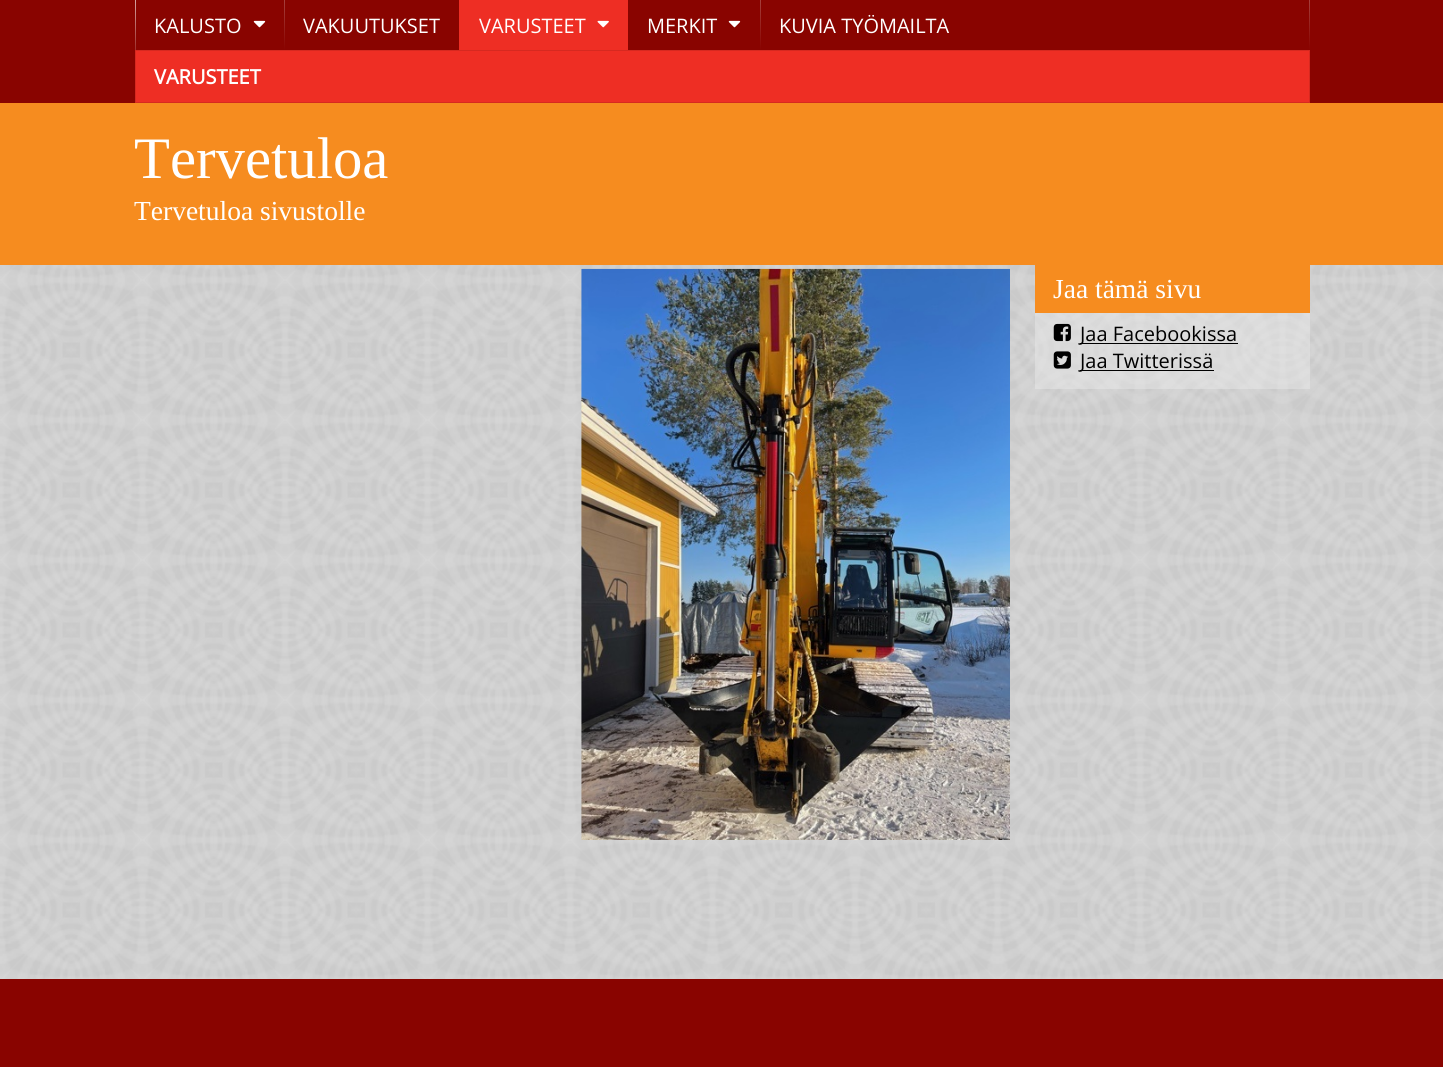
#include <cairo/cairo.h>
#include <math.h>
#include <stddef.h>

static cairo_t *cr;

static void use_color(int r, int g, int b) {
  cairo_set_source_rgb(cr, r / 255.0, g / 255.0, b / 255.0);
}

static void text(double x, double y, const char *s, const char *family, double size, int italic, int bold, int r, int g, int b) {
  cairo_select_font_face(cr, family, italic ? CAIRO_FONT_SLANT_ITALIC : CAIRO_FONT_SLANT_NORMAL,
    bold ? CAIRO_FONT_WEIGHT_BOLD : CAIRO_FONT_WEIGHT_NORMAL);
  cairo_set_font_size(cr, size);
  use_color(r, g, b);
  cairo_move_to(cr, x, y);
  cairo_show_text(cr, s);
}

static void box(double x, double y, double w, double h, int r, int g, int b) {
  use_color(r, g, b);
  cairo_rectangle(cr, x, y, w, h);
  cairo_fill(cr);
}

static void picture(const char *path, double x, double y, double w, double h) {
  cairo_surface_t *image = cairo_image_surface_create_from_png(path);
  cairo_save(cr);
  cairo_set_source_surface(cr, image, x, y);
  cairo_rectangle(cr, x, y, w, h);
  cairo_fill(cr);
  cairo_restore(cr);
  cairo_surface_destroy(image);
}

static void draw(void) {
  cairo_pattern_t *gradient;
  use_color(237, 237, 237);
  cairo_paint(cr);
  picture("img_01.png", 0, 265, 1443, 714);
  box(0, 103, 1443, 162, 246, 140, 31);
  box(0, 0, 1443, 103, 137, 4, 0);
  box(459, 0, 169, 50, 238, 46, 36);
  gradient = cairo_pattern_create_linear(136, 0, 136, 50);
  cairo_pattern_add_color_stop_rgba(gradient, 0, 0.647, 0.251, 0.239, 1);
  cairo_pattern_add_color_stop_rgba(gradient, 1, 0.537, 0.016, 0, 1);
  cairo_set_source(cr, gradient);
  cairo_pattern_destroy(gradient);
  cairo_rectangle(cr, 135, 0, 1, 50);
  cairo_fill(cr);
  cairo_set_source_rgba(cr, 0.816, 0.608, 0.6, 0.24);
  cairo_rectangle(cr, 135, 0, 1, 50);
  cairo_fill(cr);
  gradient = cairo_pattern_create_linear(136, 0, 136, 50);
  cairo_pattern_add_color_stop_rgba(gradient, 0, 1, 1, 1, 0.24);
  cairo_pattern_add_color_stop_rgba(gradient, 1, 0.537, 0.016, 0, 0.24);
  cairo_set_source(cr, gradient);
  cairo_pattern_destroy(gradient);
  cairo_rectangle(cr, 135, 0, 1, 50);
  cairo_fill(cr);
  picture("img_02.png", 597, 20, 12, 8);
  use_color(238, 46, 36);
  cairo_rectangle(cr, 135.5, 50.5, 1174, 52);
  cairo_fill_preserve(cr);
  use_color(214, 41, 32);
  cairo_set_line_width(cr, 1);
  cairo_stroke(cr);
  gradient = cairo_pattern_create_linear(761, 0, 761, 50);
  cairo_pattern_add_color_stop_rgba(gradient, 0, 0.647, 0.251, 0.239, 1);
  cairo_pattern_add_color_stop_rgba(gradient, 1, 0.537, 0.016, 0, 1);
  cairo_set_source(cr, gradient);
  cairo_pattern_destroy(gradient);
  cairo_rectangle(cr, 760, 0, 1, 50);
  cairo_fill(cr);
  gradient = cairo_pattern_create_linear(1309, 0, 1309, 50);
  cairo_pattern_add_color_stop_rgba(gradient, 0, 0.647, 0.251, 0.239, 1);
  cairo_pattern_add_color_stop_rgba(gradient, 1, 0.537, 0.016, 0, 1);
  cairo_set_source(cr, gradient);
  cairo_pattern_destroy(gradient);
  cairo_rectangle(cr, 1309, 0, 1, 50);
  cairo_fill(cr);
  picture("img_03.png", 253, 20, 13, 8);
  gradient = cairo_pattern_create_linear(284, 0, 284, 50);
  cairo_pattern_add_color_stop_rgba(gradient, 0, 0.647, 0.251, 0.239, 1);
  cairo_pattern_add_color_stop_rgba(gradient, 1, 0.537, 0.016, 0, 1);
  cairo_set_source(cr, gradient);
  cairo_pattern_destroy(gradient);
  cairo_rectangle(cr, 284, 0, 1, 50);
  cairo_fill(cr);
  cairo_set_source_rgba(cr, 0.816, 0.608, 0.6, 0.24);
  cairo_rectangle(cr, 135, 0, 1, 50);
  cairo_fill(cr);
  gradient = cairo_pattern_create_linear(136, 0, 136, 50);
  cairo_pattern_add_color_stop_rgba(gradient, 0, 1, 1, 1, 0.24);
  cairo_pattern_add_color_stop_rgba(gradient, 1, 0.537, 0.016, 0, 0.24);
  cairo_set_source(cr, gradient);
  cairo_pattern_destroy(gradient);
  cairo_rectangle(cr, 135, 0, 1, 50);
  cairo_fill(cr);
  picture("img_03.png", 728, 20, 13, 8);
  picture("img_04.png", 581, 268, 429, 572);
  box(1035, 265, 275, 48, 246, 140, 31);
  cairo_set_source_rgba(cr, 0.929, 0.929, 0.929, 0.4);
  cairo_rectangle(cr, 1035, 313, 275, 76);
  cairo_fill(cr);
  picture("img_05.png", 1053, 323, 18, 19);
  box(1080, 343, 158, 1, 0, 0, 0);
  picture("img_06.png", 1053, 351, 18, 18);
  box(1080, 370, 134, 1, 0, 0, 0);
  box(0, 979, 1443, 88, 137, 4, 0);
  text(479, 33, "VARUSTEET", "Open Sans", 20, 0, 0, 255, 255, 255);
  text(154, 84, "VARUSTEET", "Open Sans", 20, 0, 1, 255, 255, 255);
  text(779, 33, "KUVIA TYÖMAILTA", "Open Sans", 20, 0, 0, 255, 255, 255);
  text(154, 33, "KALUSTO", "Open Sans", 20, 0, 0, 255, 255, 255);
  text(303, 33, "VAKUUTUKSET", "Open Sans", 20, 0, 0, 255, 255, 255);
  text(647, 33, "MERKIT", "Open Sans", 20, 0, 0, 255, 255, 255);
  text(134, 178, "Tervetuloa", "Liberation Serif", 58.75, 0, 0, 255, 255, 255);
  text(134, 220, "Tervetuloa sivustolle", "Liberation Serif", 27.5, 0, 0, 255, 255, 255);
  text(1053, 298, "Jaa tämä sivu", "Liberation Serif", 27.5, 0, 0, 255, 255, 255);
  text(1080, 341, "Jaa Facebookissa", "Open Sans", 20, 0, 0, 0, 0, 0);
  text(1080, 368, "Jaa Twitterissä", "Open Sans", 20, 0, 0, 0, 0, 0);
}

int main(void) {
  cairo_surface_t *surface = cairo_image_surface_create(CAIRO_FORMAT_RGB24, 1443, 1067);
  cr = cairo_create(surface);
  cairo_font_options_t *options = cairo_font_options_create();
  cairo_font_options_set_hint_metrics(options, CAIRO_HINT_METRICS_OFF);
  cairo_font_options_set_hint_style(options, CAIRO_HINT_STYLE_NONE);
  cairo_set_font_options(cr, options);
  cairo_set_miter_limit(cr, 4);
  draw();
  cairo_surface_write_to_png(surface, "out.png");
  cairo_font_options_destroy(options);
  cairo_destroy(cr);
  cairo_surface_destroy(surface);
  return 0;
}
